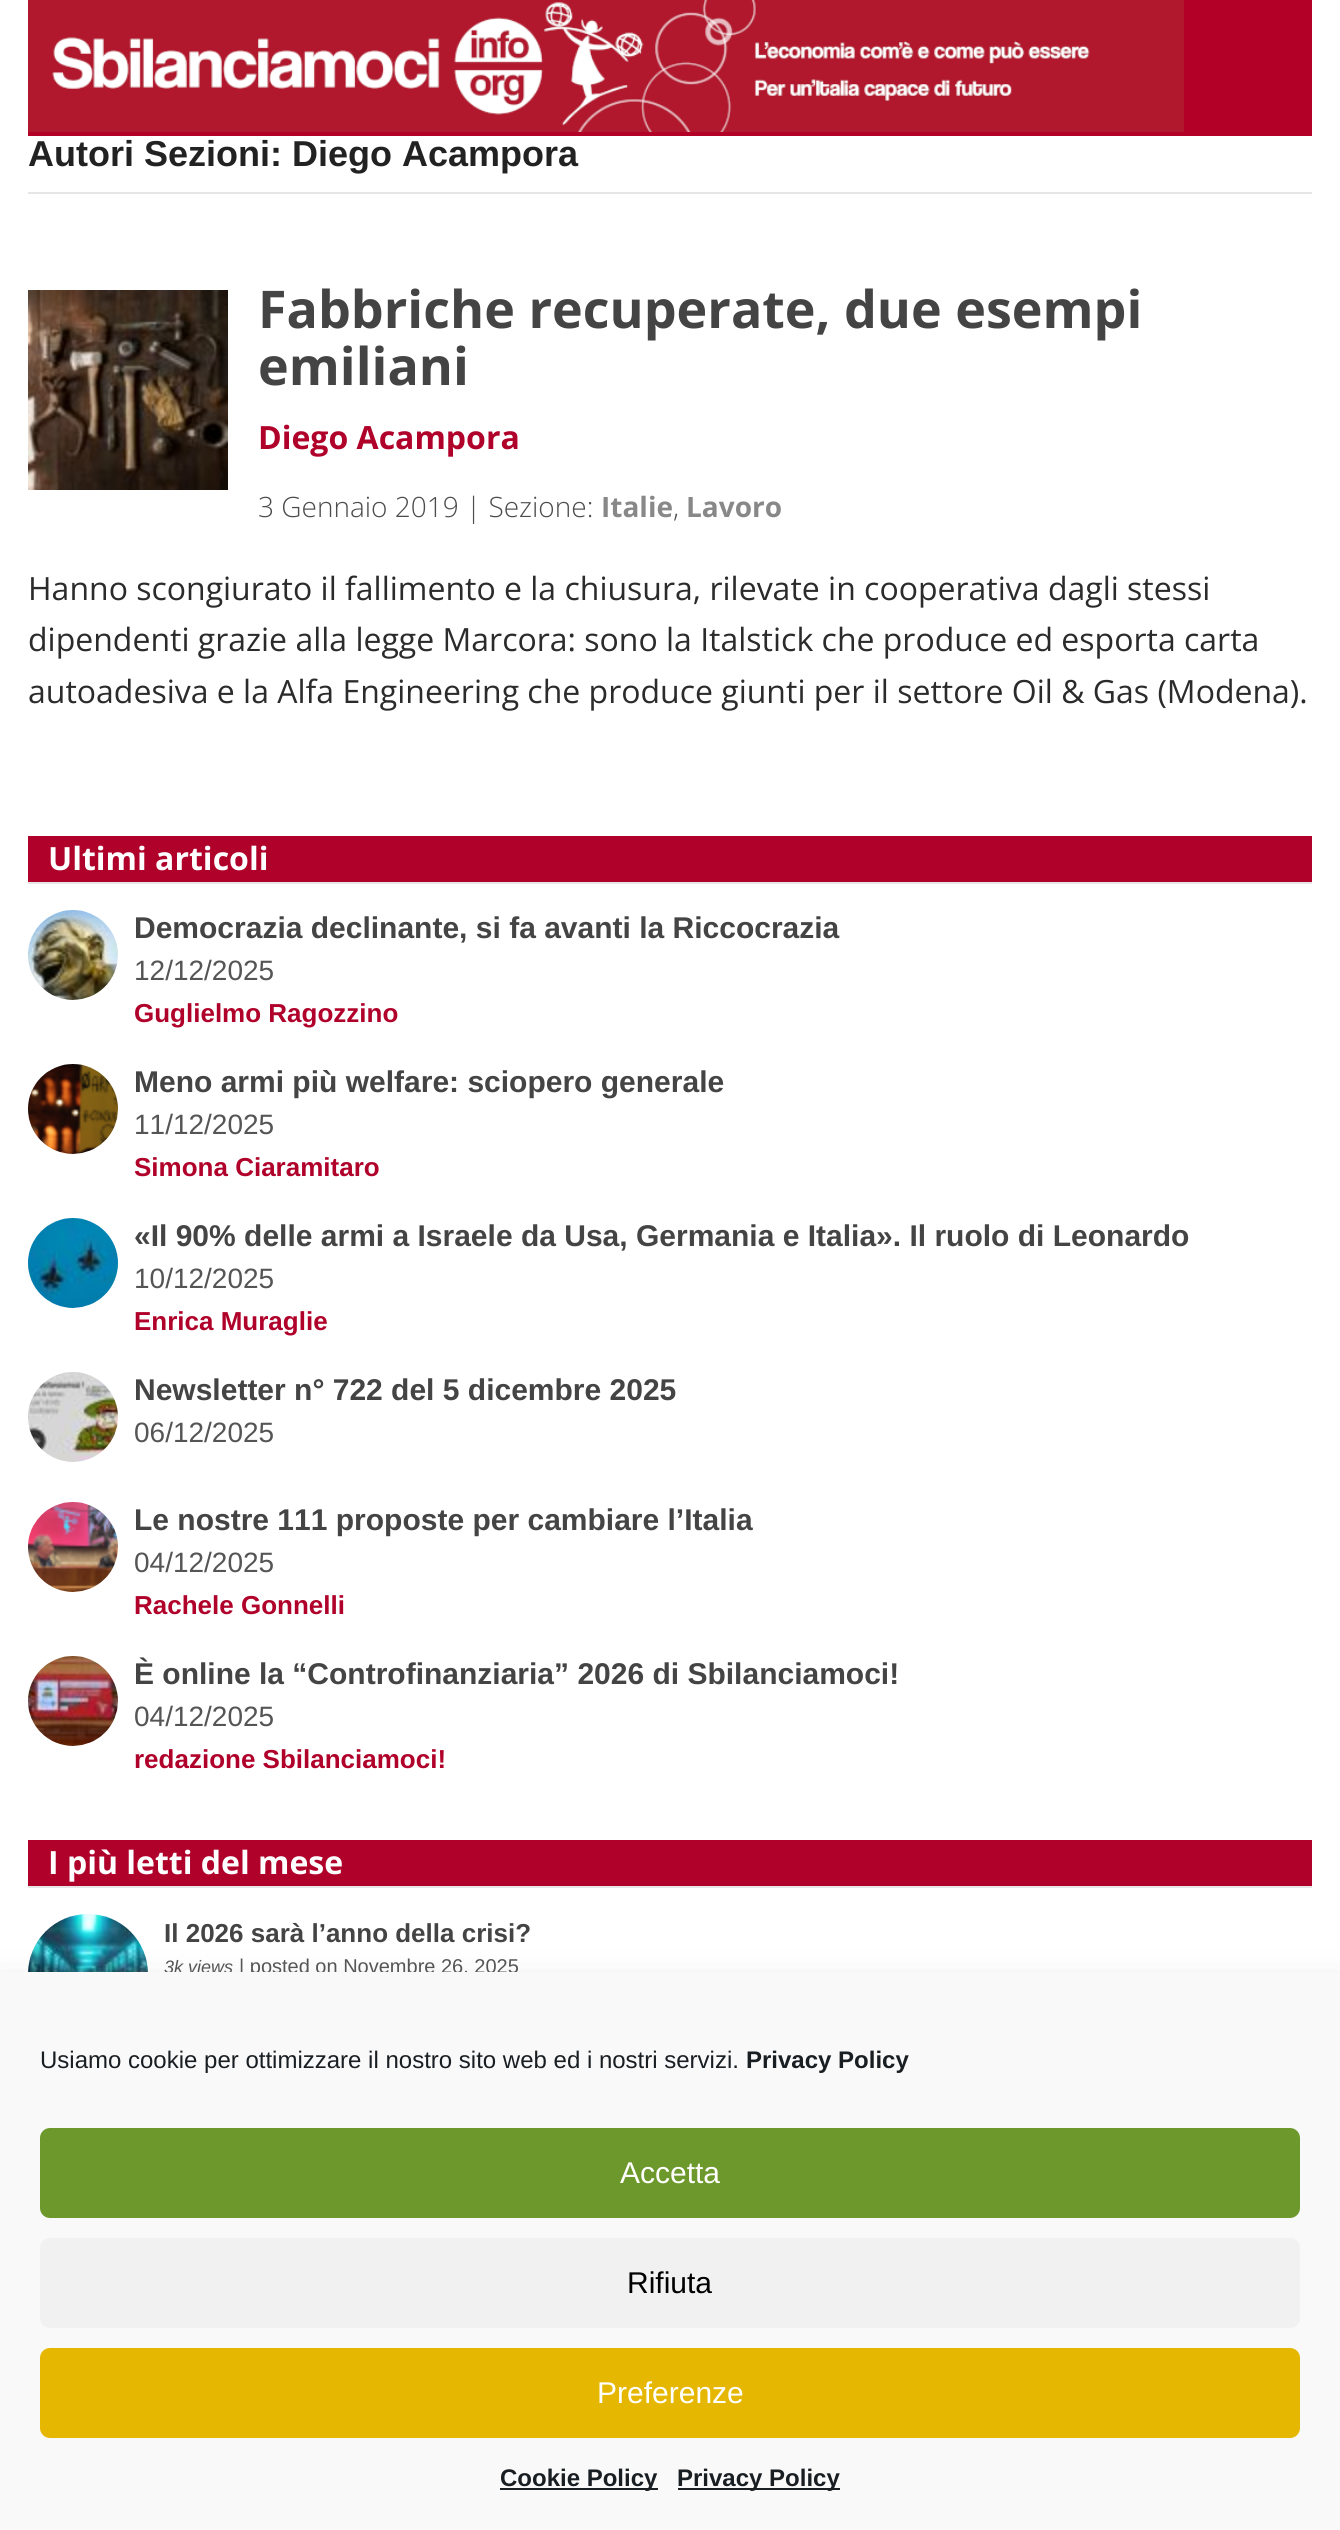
#include <cairo/cairo.h>
#include <math.h>
#include <stddef.h>

static cairo_t *cr;

static void use_color(int r, int g, int b) {
  cairo_set_source_rgb(cr, r / 255.0, g / 255.0, b / 255.0);
}

static void text(double x, double y, const char *s, const char *family, double size, int italic, int bold, int r, int g, int b) {
  cairo_select_font_face(cr, family, italic ? CAIRO_FONT_SLANT_ITALIC : CAIRO_FONT_SLANT_NORMAL,
    bold ? CAIRO_FONT_WEIGHT_BOLD : CAIRO_FONT_WEIGHT_NORMAL);
  cairo_set_font_size(cr, size);
  use_color(r, g, b);
  cairo_move_to(cr, x, y);
  cairo_show_text(cr, s);
}

static void box(double x, double y, double w, double h, int r, int g, int b) {
  use_color(r, g, b);
  cairo_rectangle(cr, x, y, w, h);
  cairo_fill(cr);
}

static void round_rect(double x, double y, double w, double h, double r) {
  cairo_new_sub_path(cr);
  cairo_arc(cr, x + w - r, y + h - r, r, 0, M_PI / 2);
  cairo_arc(cr, x + r, y + h - r, r, M_PI / 2, M_PI);
  cairo_arc(cr, x + r, y + r, r, M_PI, 1.5 * M_PI);
  cairo_arc(cr, x + w - r, y + r, r, 1.5 * M_PI, 2 * M_PI);
  cairo_close_path(cr);
}

static void shadow(double x, double y, double w, double h, double r, double blur, double alpha) {
  cairo_push_group_with_content(cr, CAIRO_CONTENT_ALPHA);
  cairo_set_operator(cr, CAIRO_OPERATOR_SOURCE);
  for (int i = 15; i >= -15 && fmin(w, h) + blur * i / 3 > 0; i -= 2) {
    double e = blur * i / 6;
    cairo_set_source_rgba(cr, 0, 0, 0, alpha * erfc((i - 1) / 8.5) / 2);
    round_rect(x - e, y - e, w + 2 * e, h + 2 * e, fmax(0, fmin(r + e + blur * .6, fmin(w, h) / 2 + e)));
    cairo_fill(cr);
  }
  cairo_pattern_t *soft = cairo_pop_group(cr);
  cairo_mask(cr, soft);
  cairo_pattern_destroy(soft);
}

static void picture(const char *path, double x, double y, double w, double h) {
  cairo_surface_t *image = cairo_image_surface_create_from_png(path);
  cairo_save(cr);
  cairo_set_source_surface(cr, image, x, y);
  cairo_rectangle(cr, x, y, w, h);
  cairo_fill(cr);
  cairo_restore(cr);
  cairo_surface_destroy(image);
}

static void draw(void) {
  use_color(255, 255, 255);
  cairo_paint(cr);
  box(28, 0, 1284, 136, 179, 0, 39);
  picture("img_01.png", 28, 0, 1156, 132);
  box(28, 192, 1284, 2, 230, 230, 230);
  picture("img_02.png", 28, 290, 200, 200);
  box(28, 836, 1284, 46, 176, 1, 42);
  box(28, 882, 1284, 2, 230, 230, 230);
  picture("img_03.png", 28, 910, 90, 90);
  picture("img_04.png", 28, 1064, 90, 90);
  picture("img_05.png", 28, 1218, 90, 90);
  picture("img_06.png", 28, 1372, 90, 90);
  picture("img_07.png", 28, 1502, 90, 90);
  picture("img_08.png", 28, 1656, 90, 90);
  box(28, 1840, 1284, 46, 176, 1, 42);
  box(28, 1886, 1284, 2, 230, 230, 230);
  picture("img_09.png", 28, 1914, 120, 58);
  use_color(0, 0, 0);
  shadow(0, 1992, 1340, 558, 0, 20, 0.19);
  text(28, 166, "Autori Sezioni: Diego Acampora", "Liberation Sans", 36, 0, 1, 34, 34, 34);
  text(258, 328, "Fabbriche recuperate, due esempi", "Open Sans", 52, 0, 1, 68, 68, 68);
  text(258, 385, "emiliani", "Open Sans", 52, 0, 1, 68, 68, 68);
  text(258, 449, "Diego Acampora", "Open Sans", 32, 0, 1, 176, 1, 42);
  text(258, 517, "3 Gennaio 2019 | Sezione:", "Open Sans Light", 28, 0, 0, 76, 76, 76);
  text(601, 517, "Italie", "Open Sans", 28, 0, 1, 136, 136, 136);
  text(673, 517, ",", "Open Sans Light", 28, 0, 0, 76, 76, 76);
  text(686, 517, "Lavoro", "Open Sans", 28, 0, 1, 136, 136, 136);
  text(28, 600, "Hanno scongiurato il fallimento e la chiusura, rilevate in cooperativa dagli stessi", "Open Sans", 32, 0, 0, 43, 43, 43);
  text(28, 651, "dipendenti grazie alla legge Marcora: sono la Italstick che produce ed esporta carta", "Open Sans", 32, 0, 0, 43, 43, 43);
  text(28, 703, "autoadesiva e la Alfa Engineering che produce giunti per il settore Oil & Gas (Modena).", "Open Sans", 32, 0, 0, 43, 43, 43);
  text(48, 870, "Ultimi articoli", "Open Sans", 32, 0, 1, 255, 255, 255);
  text(134, 938, "Democrazia declinante, si fa avanti la Riccocrazia", "Liberation Sans", 30, 0, 1, 68, 68, 68);
  text(134, 980, "12/12/2025", "Liberation Sans", 28, 0, 0, 85, 85, 85);
  text(134, 1022, "Guglielmo Ragozzino", "Liberation Sans", 26, 0, 1, 176, 1, 42);
  text(134, 1092, "Meno armi più welfare: sciopero generale", "Liberation Sans", 30, 0, 1, 68, 68, 68);
  text(134, 1134, "11/12/2025", "Liberation Sans", 28, 0, 0, 85, 85, 85);
  text(134, 1176, "Simona Ciaramitaro", "Liberation Sans", 26, 0, 1, 176, 1, 42);
  text(134, 1246, "«Il 90% delle armi a Israele da Usa, Germania e Italia». Il ruolo di Leonardo", "Liberation Sans", 30, 0, 1, 68, 68, 68);
  text(134, 1288, "10/12/2025", "Liberation Sans", 28, 0, 0, 85, 85, 85);
  text(134, 1330, "Enrica Muraglie", "Liberation Sans", 26, 0, 1, 176, 1, 42);
  text(134, 1400, "Newsletter n° 722 del 5 dicembre 2025", "Liberation Sans", 30, 0, 1, 68, 68, 68);
  text(134, 1442, "06/12/2025", "Liberation Sans", 28, 0, 0, 85, 85, 85);
  text(134, 1530, "Le nostre 111 proposte per cambiare l’Italia", "Liberation Sans", 30, 0, 1, 68, 68, 68);
  text(134, 1572, "04/12/2025", "Liberation Sans", 28, 0, 0, 85, 85, 85);
  text(134, 1614, "Rachele Gonnelli", "Liberation Sans", 26, 0, 1, 176, 1, 42);
  text(134, 1684, "È online la “Controfinanziaria” 2026 di Sbilanciamoci!", "Liberation Sans", 30, 0, 1, 68, 68, 68);
  text(134, 1726, "04/12/2025", "Liberation Sans", 28, 0, 0, 85, 85, 85);
  text(134, 1768, "redazione Sbilanciamoci!", "Liberation Sans", 26, 0, 1, 176, 1, 42);
  text(48, 1874, "I più letti del mese", "Open Sans", 32, 0, 1, 255, 255, 255);
  text(164, 1942, "Il 2026 sarà l’anno della crisi?", "Liberation Sans", 26, 0, 1, 68, 68, 68);
  text(164, 1973, "3k views", "Liberation Sans", 18, 1, 0, 85, 85, 85);
  text(239, 1973, "| posted on Novembre 26, 2025", "Liberation Sans", 20, 0, 0, 85, 85, 85);
  box(0, 1972, 1340, 558, 249, 249, 249);
  text(40, 2068, "Usiamo cookie per ottimizzare il nostro sito web ed i nostri servizi.", "Liberation Sans", 24, 0, 0, 25, 30, 35);
  text(746, 2068, "Privacy Policy", "Liberation Sans", 24, 0, 1, 25, 30, 35);
  use_color(109, 153, 44);
  round_rect(41, 2129, 1258, 88, 9);
  cairo_fill_preserve(cr);
  cairo_stroke(cr);
  text(620, 2183, "Accetta", "Liberation Sans", 30, 0, 0, 255, 255, 255);
  use_color(241, 241, 241);
  round_rect(40, 2238, 1260, 90, 10);
  cairo_fill(cr);
  text(627, 2293, "Rifiuta", "Liberation Sans", 30, 0, 0, 0, 0, 0);
  use_color(229, 183, 0);
  round_rect(41, 2349, 1258, 88, 9);
  cairo_fill_preserve(cr);
  cairo_stroke(cr);
  text(597, 2403, "Preferenze", "Liberation Sans", 30, 0, 0, 255, 255, 255);
  box(500, 2488, 158, 2, 25, 30, 35);
  text(500, 2486, "Cookie Policy", "Liberation Sans", 24, 0, 1, 25, 30, 35);
  box(678, 2488, 162, 2, 25, 30, 35);
  text(677, 2486, "Privacy Policy", "Liberation Sans", 24, 0, 1, 25, 30, 35);
}

int main(void) {
  cairo_surface_t *surface = cairo_image_surface_create(CAIRO_FORMAT_RGB24, 1340, 2530);
  cr = cairo_create(surface);
  cairo_font_options_t *options = cairo_font_options_create();
  cairo_font_options_set_hint_metrics(options, CAIRO_HINT_METRICS_OFF);
  cairo_font_options_set_hint_style(options, CAIRO_HINT_STYLE_NONE);
  cairo_set_font_options(cr, options);
  cairo_set_miter_limit(cr, 4);
  draw();
  cairo_surface_write_to_png(surface, "out.png");
  cairo_font_options_destroy(options);
  cairo_destroy(cr);
  cairo_surface_destroy(surface);
  return 0;
}
